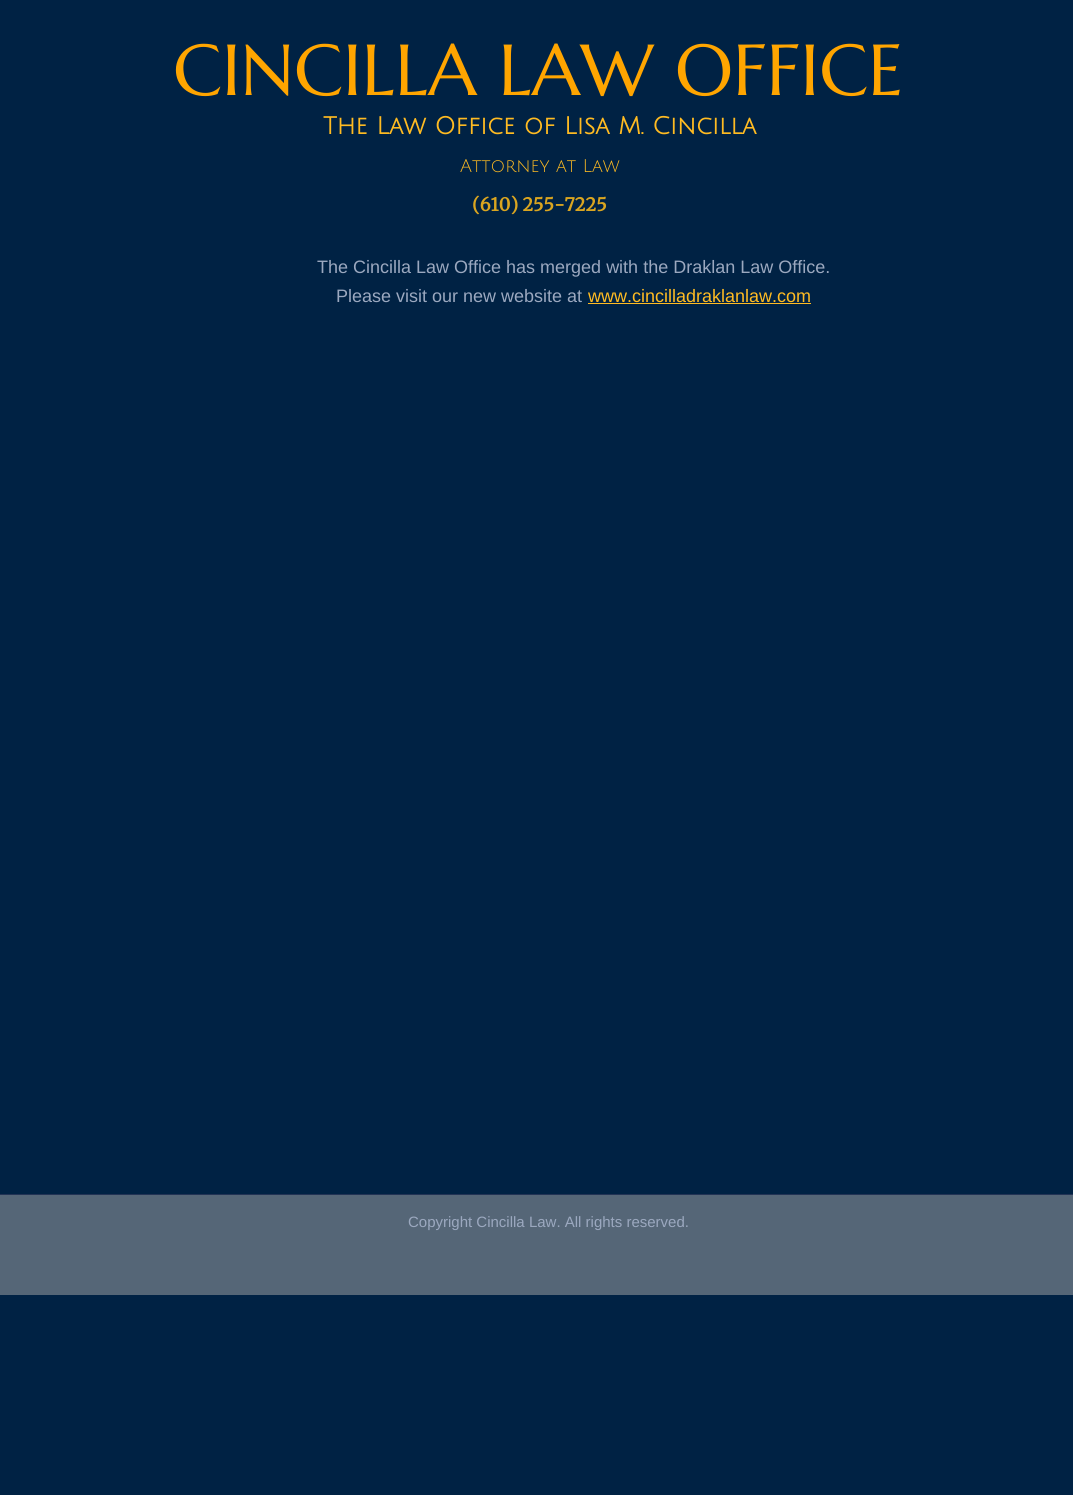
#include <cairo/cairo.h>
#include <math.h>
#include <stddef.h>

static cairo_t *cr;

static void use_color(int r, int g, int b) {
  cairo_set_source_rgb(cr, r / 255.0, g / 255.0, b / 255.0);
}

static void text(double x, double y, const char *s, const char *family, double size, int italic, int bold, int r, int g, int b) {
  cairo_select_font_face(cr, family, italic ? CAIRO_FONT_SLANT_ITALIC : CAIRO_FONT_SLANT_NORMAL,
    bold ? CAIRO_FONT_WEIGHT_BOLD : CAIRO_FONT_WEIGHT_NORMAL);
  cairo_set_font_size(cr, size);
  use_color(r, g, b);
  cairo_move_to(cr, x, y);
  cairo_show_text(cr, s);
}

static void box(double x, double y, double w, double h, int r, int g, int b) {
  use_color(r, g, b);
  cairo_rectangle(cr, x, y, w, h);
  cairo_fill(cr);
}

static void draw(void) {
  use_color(0, 34, 68);
  cairo_paint(cr);
  box(588, 303, 223, 1, 255, 187, 34);
  box(0, 1195, 1073, 100, 85, 102, 119);
  box(0, 1194, 1073, 1, 34, 51, 85);
  text(173, 95, "CINCILLA LAW OFFICE", "Marcellus", 72, 0, 0, 255, 165, 0);
  text(323, 134, "The Law Office of Lisa M. Cincilla", "Julius Sans One", 24, 0, 1, 255, 187, 34);
  text(460, 172, "Attorney at Law", "Julius Sans One", 18, 0, 0, 255, 187, 34);
  text(472, 211, "(610) 255-7225", "Merriweather", 18, 0, 1, 218, 165, 32);
  text(317, 273, "The Cincilla Law Office has merged with the Draklan Law Office.", "Liberation Sans", 18, 0, 0, 155, 168, 191);
  text(336, 302, "Please visit our new website at", "Liberation Sans", 18, 0, 0, 155, 168, 191);
  text(588, 302, "www.cincilladraklanlaw.com", "Liberation Sans", 18, 0, 0, 255, 187, 34);
  text(408, 1227, "Copyright Cincilla Law. All rights reserved.", "Liberation Sans", 15, 0, 0, 155, 168, 191);
}

int main(void) {
  cairo_surface_t *surface = cairo_image_surface_create(CAIRO_FORMAT_RGB24, 1073, 1495);
  cr = cairo_create(surface);
  cairo_font_options_t *options = cairo_font_options_create();
  cairo_font_options_set_hint_metrics(options, CAIRO_HINT_METRICS_OFF);
  cairo_font_options_set_hint_style(options, CAIRO_HINT_STYLE_NONE);
  cairo_set_font_options(cr, options);
  cairo_set_miter_limit(cr, 4);
  draw();
  cairo_surface_write_to_png(surface, "out.png");
  cairo_font_options_destroy(options);
  cairo_destroy(cr);
  cairo_surface_destroy(surface);
  return 0;
}
